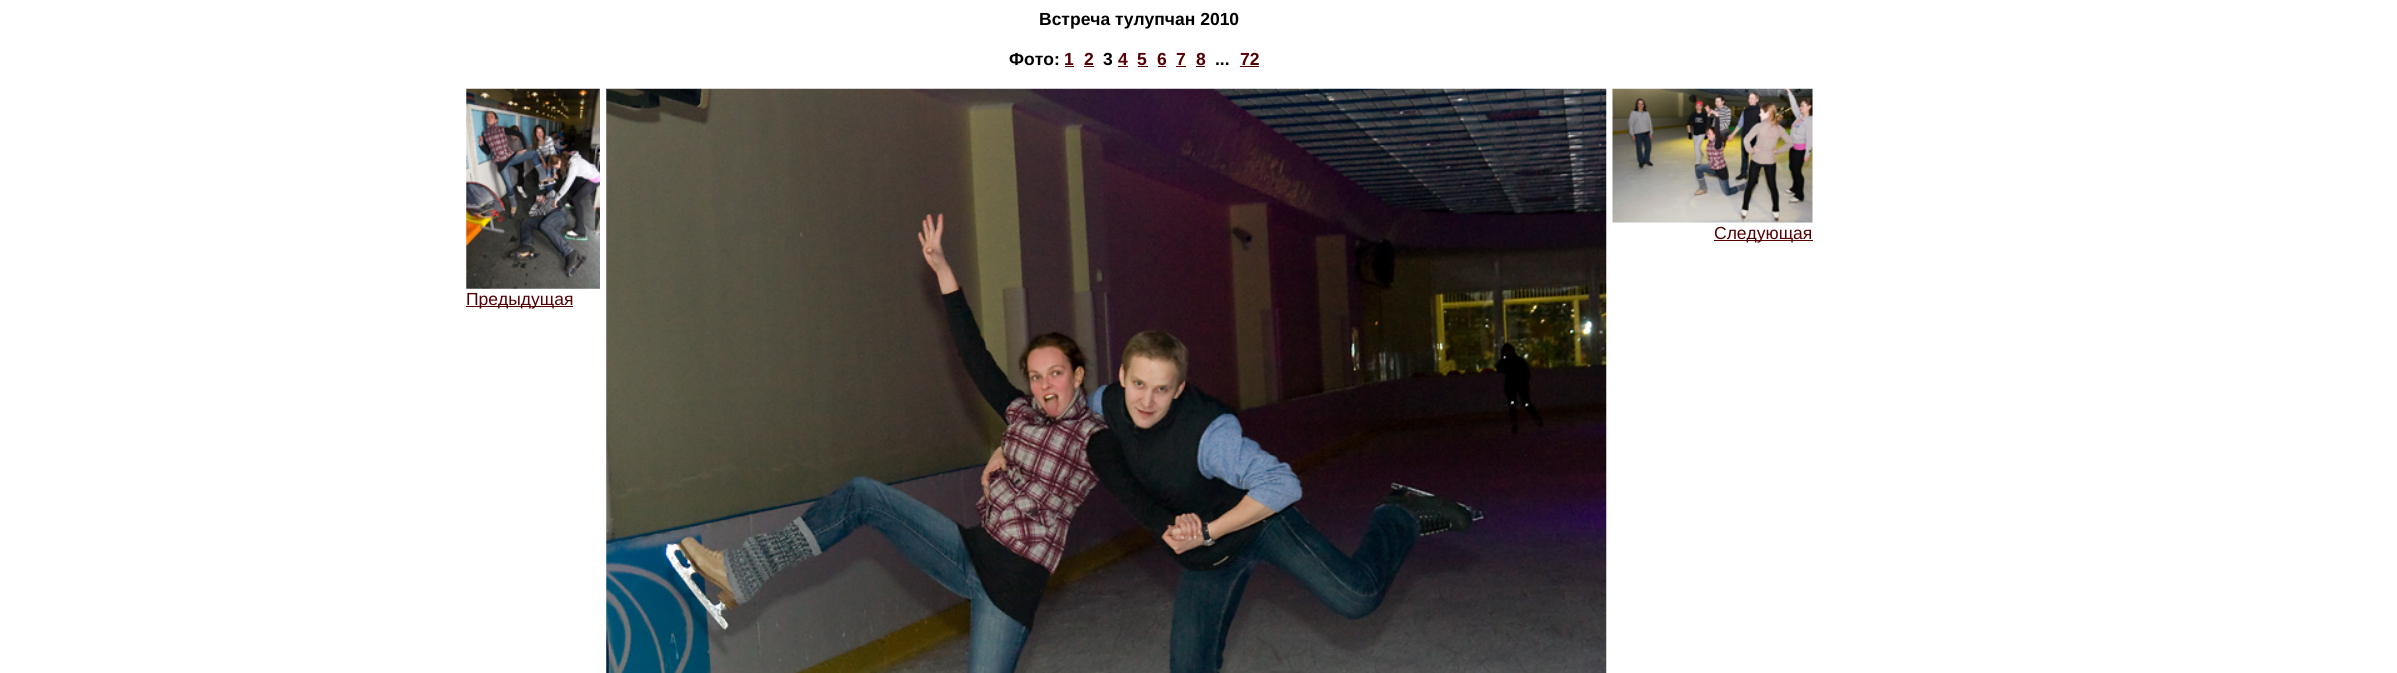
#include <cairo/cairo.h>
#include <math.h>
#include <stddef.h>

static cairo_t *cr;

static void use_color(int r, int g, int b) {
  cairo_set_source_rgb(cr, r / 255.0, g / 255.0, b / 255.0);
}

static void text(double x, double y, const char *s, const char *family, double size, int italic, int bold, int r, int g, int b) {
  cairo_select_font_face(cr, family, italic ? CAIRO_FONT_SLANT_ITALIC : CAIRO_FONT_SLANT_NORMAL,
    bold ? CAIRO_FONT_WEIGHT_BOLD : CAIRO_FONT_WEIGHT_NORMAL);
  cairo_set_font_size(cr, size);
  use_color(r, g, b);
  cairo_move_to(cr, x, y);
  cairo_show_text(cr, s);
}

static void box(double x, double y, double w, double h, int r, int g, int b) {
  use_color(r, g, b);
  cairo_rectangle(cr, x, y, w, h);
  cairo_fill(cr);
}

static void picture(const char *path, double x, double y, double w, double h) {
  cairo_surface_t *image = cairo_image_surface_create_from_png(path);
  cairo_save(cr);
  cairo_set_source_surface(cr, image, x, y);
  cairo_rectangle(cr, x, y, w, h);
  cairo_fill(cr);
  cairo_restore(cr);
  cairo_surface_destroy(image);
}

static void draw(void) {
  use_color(255, 255, 255);
  cairo_paint(cr);
  box(1065, 66, 9, 1, 83, 0, 4);
  box(1084, 66, 10, 1, 83, 0, 4);
  box(1118, 66, 10, 1, 83, 0, 4);
  box(1138, 66, 10, 1, 83, 0, 4);
  box(1158, 66, 8, 1, 83, 0, 4);
  box(1176, 66, 10, 1, 83, 0, 4);
  box(1196, 66, 9, 1, 83, 0, 4);
  box(1240, 66, 19, 1, 83, 0, 4);
  picture("img_01.png", 606, 88, 1001, 585);
  picture("img_02.png", 1612, 88, 201, 135);
  box(1714, 240, 99, 1, 83, 0, 4);
  picture("img_03.png", 466, 88, 134, 201);
  box(466, 306, 107, 1, 83, 0, 4);
  text(1039, 25, "Встреча тулупчан 2010", "Liberation Sans", 17.5, 0, 1, 0, 0, 0);
  text(1009, 65, "Фото:", "Liberation Sans", 17.5, 0, 1, 0, 0, 0);
  text(1064, 65, "1", "Liberation Sans", 17.5, 0, 1, 83, 0, 4);
  text(1084, 65, "2", "Liberation Sans", 17.5, 0, 1, 83, 0, 4);
  text(1103, 65, "3", "Liberation Sans", 17.5, 0, 1, 0, 0, 0);
  text(1118, 65, "4", "Liberation Sans", 17.5, 0, 1, 83, 0, 4);
  text(1137, 65, "5", "Liberation Sans", 17.5, 0, 1, 83, 0, 4);
  text(1157, 65, "6", "Liberation Sans", 17.5, 0, 1, 83, 0, 4);
  text(1176, 65, "7", "Liberation Sans", 17.5, 0, 1, 83, 0, 4);
  text(1196, 65, "8", "Liberation Sans", 17.5, 0, 1, 83, 0, 4);
  text(1215, 65, "...", "Liberation Sans", 17.5, 0, 1, 0, 0, 0);
  text(1240, 65, "72", "Liberation Sans", 17.5, 0, 1, 83, 0, 4);
  text(1714, 239, "Следующая", "Liberation Sans", 17.5, 0, 0, 83, 0, 4);
  text(466, 305, "Предыдущая", "Liberation Sans", 17.5, 0, 0, 83, 0, 4);
}

int main(void) {
  cairo_surface_t *surface = cairo_image_surface_create(CAIRO_FORMAT_RGB24, 2397, 673);
  cr = cairo_create(surface);
  cairo_font_options_t *options = cairo_font_options_create();
  cairo_font_options_set_hint_metrics(options, CAIRO_HINT_METRICS_OFF);
  cairo_font_options_set_hint_style(options, CAIRO_HINT_STYLE_NONE);
  cairo_set_font_options(cr, options);
  cairo_set_miter_limit(cr, 4);
  draw();
  cairo_surface_write_to_png(surface, "out.png");
  cairo_font_options_destroy(options);
  cairo_destroy(cr);
  cairo_surface_destroy(surface);
  return 0;
}
